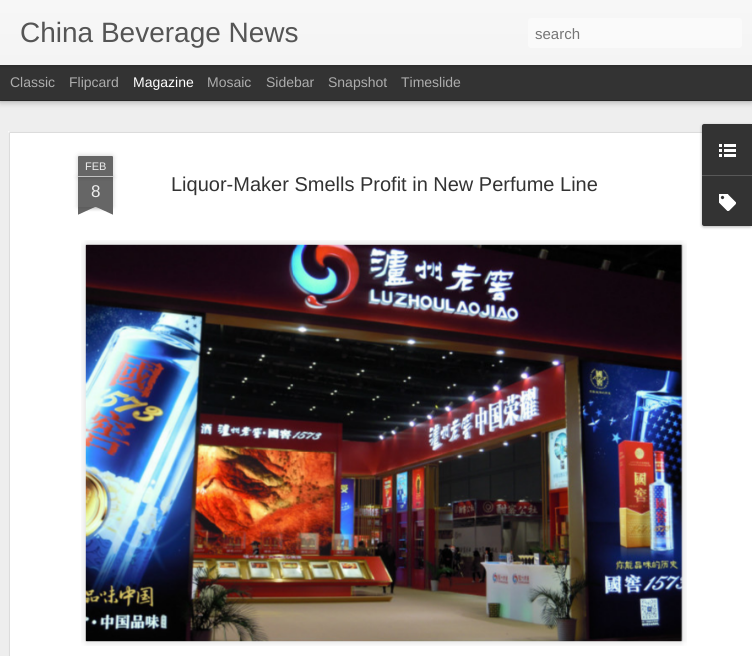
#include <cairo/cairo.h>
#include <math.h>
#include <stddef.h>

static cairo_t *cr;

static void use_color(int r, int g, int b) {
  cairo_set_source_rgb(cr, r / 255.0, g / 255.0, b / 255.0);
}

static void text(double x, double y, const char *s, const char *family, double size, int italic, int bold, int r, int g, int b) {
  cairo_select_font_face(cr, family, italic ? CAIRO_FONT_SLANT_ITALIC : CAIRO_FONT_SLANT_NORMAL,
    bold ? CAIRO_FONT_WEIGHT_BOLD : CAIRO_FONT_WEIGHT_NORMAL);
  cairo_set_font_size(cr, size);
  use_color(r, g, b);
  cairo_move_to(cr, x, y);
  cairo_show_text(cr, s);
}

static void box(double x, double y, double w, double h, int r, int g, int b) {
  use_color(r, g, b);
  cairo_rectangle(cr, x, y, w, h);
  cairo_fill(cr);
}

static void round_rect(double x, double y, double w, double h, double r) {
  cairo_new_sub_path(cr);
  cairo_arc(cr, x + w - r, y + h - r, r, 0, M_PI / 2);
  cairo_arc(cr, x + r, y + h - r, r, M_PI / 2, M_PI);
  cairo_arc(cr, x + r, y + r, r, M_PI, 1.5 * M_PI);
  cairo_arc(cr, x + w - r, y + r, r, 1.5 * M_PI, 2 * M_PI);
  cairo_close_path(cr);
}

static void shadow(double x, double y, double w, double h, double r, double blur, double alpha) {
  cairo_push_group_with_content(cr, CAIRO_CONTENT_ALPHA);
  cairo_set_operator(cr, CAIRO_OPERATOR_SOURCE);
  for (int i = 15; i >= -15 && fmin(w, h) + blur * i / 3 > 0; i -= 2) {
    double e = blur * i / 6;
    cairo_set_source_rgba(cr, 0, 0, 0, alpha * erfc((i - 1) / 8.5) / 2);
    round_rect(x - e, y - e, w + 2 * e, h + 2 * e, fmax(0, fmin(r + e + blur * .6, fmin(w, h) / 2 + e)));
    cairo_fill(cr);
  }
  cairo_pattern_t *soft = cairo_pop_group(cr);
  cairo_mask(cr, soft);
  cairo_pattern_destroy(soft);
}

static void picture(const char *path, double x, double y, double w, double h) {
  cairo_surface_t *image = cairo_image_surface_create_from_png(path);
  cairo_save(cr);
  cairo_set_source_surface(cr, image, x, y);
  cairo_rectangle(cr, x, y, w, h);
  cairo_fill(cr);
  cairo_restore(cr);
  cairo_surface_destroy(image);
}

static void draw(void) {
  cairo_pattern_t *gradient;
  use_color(51, 51, 51);
  cairo_paint(cr);
  box(0, 101, 752, 555, 238, 238, 238);
  use_color(0, 0, 0);
  shadow(0, 65, 752, 35, 0, 4, 0.5);
  box(0, 65, 752, 35, 51, 51, 51);
  use_color(0, 0, 0);
  shadow(0, 0, 752, 65, 0, 2.5, 0.3);
  gradient = cairo_pattern_create_linear(0, 0, 0, 65);
  cairo_pattern_add_color_stop_rgba(gradient, 0, 0.969, 0.969, 0.969, 1);
  cairo_pattern_add_color_stop_rgba(gradient, 1, 0.957, 0.957, 0.957, 1);
  cairo_set_source(cr, gradient);
  cairo_pattern_destroy(gradient);
  cairo_rectangle(cr, 0, 0, 752, 65);
  cairo_fill(cr);
  use_color(250, 250, 250);
  round_rect(528, 18, 214, 30, 3);
  cairo_fill(cr);
  box(8, 131, 744, 525, 255, 255, 255);
  picture("img_01.png", 8, 131, 694, 525);
  use_color(0, 0, 0);
  shadow(78, 177, 35, 30, 0, 2.5, 0.2);
  box(78, 177, 35, 30, 102, 102, 102);
  use_color(0, 0, 0);
  shadow(78, 156, 35, 21, 1, 2.5, 0.2);
  use_color(102, 102, 102);
  cairo_new_path(cr);
  cairo_move_to(cr, 79, 156);
  cairo_line_to(cr, 112, 156);
  cairo_curve_to(cr, 112.5, 156, 113, 156.5, 113, 157);
  cairo_line_to(cr, 113, 177);
  cairo_line_to(cr, 78, 177);
  cairo_line_to(cr, 78, 157);
  cairo_curve_to(cr, 78, 156.5, 78.5, 156, 79, 156);
  cairo_close_path(cr);
  cairo_fill(cr);
  box(78, 176, 35, 1, 194, 194, 194);
  cairo_save(cr);
  cairo_rectangle(cr, 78, 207, 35, 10);
  cairo_clip(cr);
  use_color(0, 0, 0);
  shadow(69, 197, 50, 10, 0, 2.5, 0.2);
  cairo_restore(cr);
  cairo_save(cr);
  cairo_rectangle(cr, 78, 207, 35, 10);
  cairo_clip(cr);
  use_color(102, 102, 102);
  cairo_new_path(cr);
  cairo_move_to(cr, 69, 208);
  cairo_line_to(cr, 115, 187);
  cairo_line_to(cr, 119, 196);
  cairo_line_to(cr, 73, 217);
  cairo_close_path(cr);
  cairo_fill(cr);
  cairo_restore(cr);
  cairo_save(cr);
  cairo_rectangle(cr, 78, 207, 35, 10);
  cairo_clip(cr);
  use_color(0, 0, 0);
  shadow(72, 197, 50, 10, 0, 2.5, 0.2);
  cairo_restore(cr);
  cairo_save(cr);
  cairo_rectangle(cr, 78, 207, 35, 10);
  cairo_clip(cr);
  use_color(102, 102, 102);
  cairo_new_path(cr);
  cairo_move_to(cr, 76, 187);
  cairo_line_to(cr, 122, 208);
  cairo_line_to(cr, 118, 217);
  cairo_line_to(cr, 72, 196);
  cairo_close_path(cr);
  cairo_fill(cr);
  cairo_restore(cr);
  picture("img_02.png", 81, 240, 606, 406);
  picture("img_03.png", 85, 244, 598, 398);
  use_color(0, 0, 0);
  shadow(702, 125, 50, 102, 2, 1.5, 0.3);
  use_color(51, 51, 51);
  cairo_new_path(cr);
  cairo_move_to(cr, 704, 124);
  cairo_line_to(cr, 752, 124);
  cairo_line_to(cr, 752, 175);
  cairo_line_to(cr, 702, 175);
  cairo_line_to(cr, 702, 126);
  cairo_curve_to(cr, 702, 125, 703, 124, 704, 124);
  cairo_close_path(cr);
  cairo_fill(cr);
  picture("img_04.png", 719, 144, 17, 13);
  cairo_new_path(cr);
  cairo_move_to(cr, 702, 175);
  cairo_line_to(cr, 752, 175);
  cairo_line_to(cr, 752, 226);
  cairo_line_to(cr, 704, 226);
  cairo_curve_to(cr, 703, 226, 702, 225, 702, 224);
  cairo_close_path(cr);
  cairo_fill(cr);
  box(702, 175, 50, 1, 88, 88, 88);
  picture("img_05.png", 719, 194, 17, 17);
  text(20, 42, "China Beverage News", "Liberation Sans", 28, 0, 0, 85, 85, 85);
  text(535, 39, "search", "Liberation Sans", 15, 0, 0, 117, 117, 117);
  text(10, 87, "Classic", "Liberation Sans", 14, 0, 0, 173, 173, 173);
  text(69, 87, "Flipcard", "Liberation Sans", 14, 0, 0, 173, 173, 173);
  text(133, 87, "Magazine", "Liberation Sans", 14, 0, 0, 255, 255, 255);
  text(207, 87, "Mosaic", "Liberation Sans", 14, 0, 0, 173, 173, 173);
  text(266, 87, "Sidebar", "Liberation Sans", 14, 0, 0, 173, 173, 173);
  text(328, 87, "Snapshot", "Liberation Sans", 14, 0, 0, 173, 173, 173);
  text(401, 87, "Timeslide", "Liberation Sans", 14, 0, 0, 173, 173, 173);
  text(85, 170, "FEB", "Liberation Sans", 11, 0, 0, 238, 238, 238);
  text(91, 197, "8", "Liberation Sans", 17, 0, 0, 238, 238, 238);
  text(171, 191, "Liquor-Maker Smells Profit in New Perfume Line", "Liberation Sans", 20, 0, 0, 51, 51, 51);
}

int main(void) {
  cairo_surface_t *surface = cairo_image_surface_create(CAIRO_FORMAT_RGB24, 752, 656);
  cr = cairo_create(surface);
  cairo_font_options_t *options = cairo_font_options_create();
  cairo_font_options_set_hint_metrics(options, CAIRO_HINT_METRICS_OFF);
  cairo_font_options_set_hint_style(options, CAIRO_HINT_STYLE_NONE);
  cairo_set_font_options(cr, options);
  cairo_set_miter_limit(cr, 4);
  draw();
  cairo_surface_write_to_png(surface, "out.png");
  cairo_font_options_destroy(options);
  cairo_destroy(cr);
  cairo_surface_destroy(surface);
  return 0;
}
